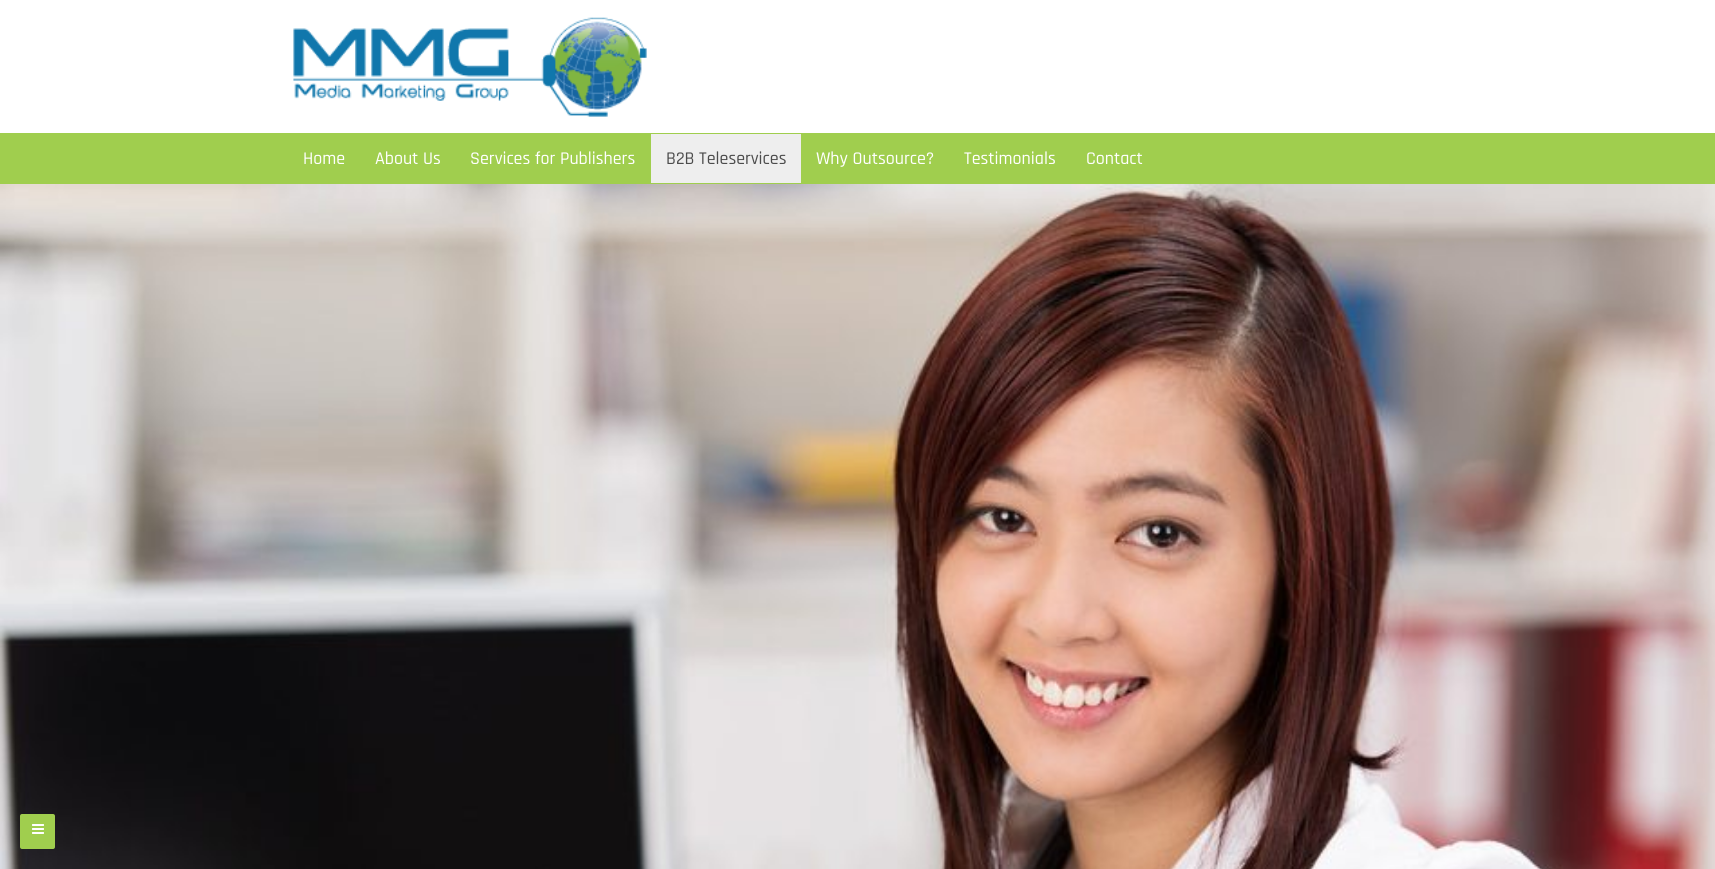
#include <cairo/cairo.h>
#include <math.h>
#include <stddef.h>

static cairo_t *cr;

static void use_color(int r, int g, int b) {
  cairo_set_source_rgb(cr, r / 255.0, g / 255.0, b / 255.0);
}

static void text(double x, double y, const char *s, const char *family, double size, int italic, int bold, int r, int g, int b) {
  cairo_select_font_face(cr, family, italic ? CAIRO_FONT_SLANT_ITALIC : CAIRO_FONT_SLANT_NORMAL,
    bold ? CAIRO_FONT_WEIGHT_BOLD : CAIRO_FONT_WEIGHT_NORMAL);
  cairo_set_font_size(cr, size);
  use_color(r, g, b);
  cairo_move_to(cr, x, y);
  cairo_show_text(cr, s);
}

static void box(double x, double y, double w, double h, int r, int g, int b) {
  use_color(r, g, b);
  cairo_rectangle(cr, x, y, w, h);
  cairo_fill(cr);
}

static void round_rect(double x, double y, double w, double h, double r) {
  cairo_new_sub_path(cr);
  cairo_arc(cr, x + w - r, y + h - r, r, 0, M_PI / 2);
  cairo_arc(cr, x + r, y + h - r, r, M_PI / 2, M_PI);
  cairo_arc(cr, x + r, y + r, r, M_PI, 1.5 * M_PI);
  cairo_arc(cr, x + w - r, y + r, r, 1.5 * M_PI, 2 * M_PI);
  cairo_close_path(cr);
}

static void picture(const char *path, double x, double y, double w, double h) {
  cairo_surface_t *image = cairo_image_surface_create_from_png(path);
  cairo_save(cr);
  cairo_set_source_surface(cr, image, x, y);
  cairo_rectangle(cr, x, y, w, h);
  cairo_fill(cr);
  cairo_restore(cr);
  cairo_surface_destroy(image);
}

static void draw(void) {
  use_color(255, 255, 255);
  cairo_paint(cr);
  picture("img_01.png", 293, 17, 354, 100);
  box(0, 133, 1715, 51, 160, 206, 78);
  box(651, 134, 150, 49, 238, 238, 238);
  picture("img_02.png", 0, 184, 1715, 685);
  use_color(160, 206, 78);
  round_rect(20, 814, 35, 35, 2);
  cairo_fill(cr);
  picture("img_03.png", 32, 824, 12, 10);
  text(303, 164, "Home", "Rajdhani Medium", 18, 0, 0, 255, 255, 255);
  text(375, 164, "About Us", "Rajdhani Medium", 18, 0, 0, 255, 255, 255);
  text(470, 164, "Services for Publishers", "Rajdhani Medium", 18, 0, 0, 255, 255, 255);
  text(666, 164, "B2B Teleservices", "Rajdhani Medium", 18, 0, 0, 76, 76, 76);
  text(816, 164, "Why Outsource?", "Rajdhani Medium", 18, 0, 0, 255, 255, 255);
  text(964, 164, "Testimonials", "Rajdhani Medium", 18, 0, 0, 255, 255, 255);
  text(1086, 164, "Contact", "Rajdhani Medium", 18, 0, 0, 255, 255, 255);
}

int main(void) {
  cairo_surface_t *surface = cairo_image_surface_create(CAIRO_FORMAT_RGB24, 1715, 869);
  cr = cairo_create(surface);
  cairo_font_options_t *options = cairo_font_options_create();
  cairo_font_options_set_hint_metrics(options, CAIRO_HINT_METRICS_OFF);
  cairo_font_options_set_hint_style(options, CAIRO_HINT_STYLE_NONE);
  cairo_set_font_options(cr, options);
  cairo_set_miter_limit(cr, 4);
  draw();
  cairo_surface_write_to_png(surface, "out.png");
  cairo_font_options_destroy(options);
  cairo_destroy(cr);
  cairo_surface_destroy(surface);
  return 0;
}
